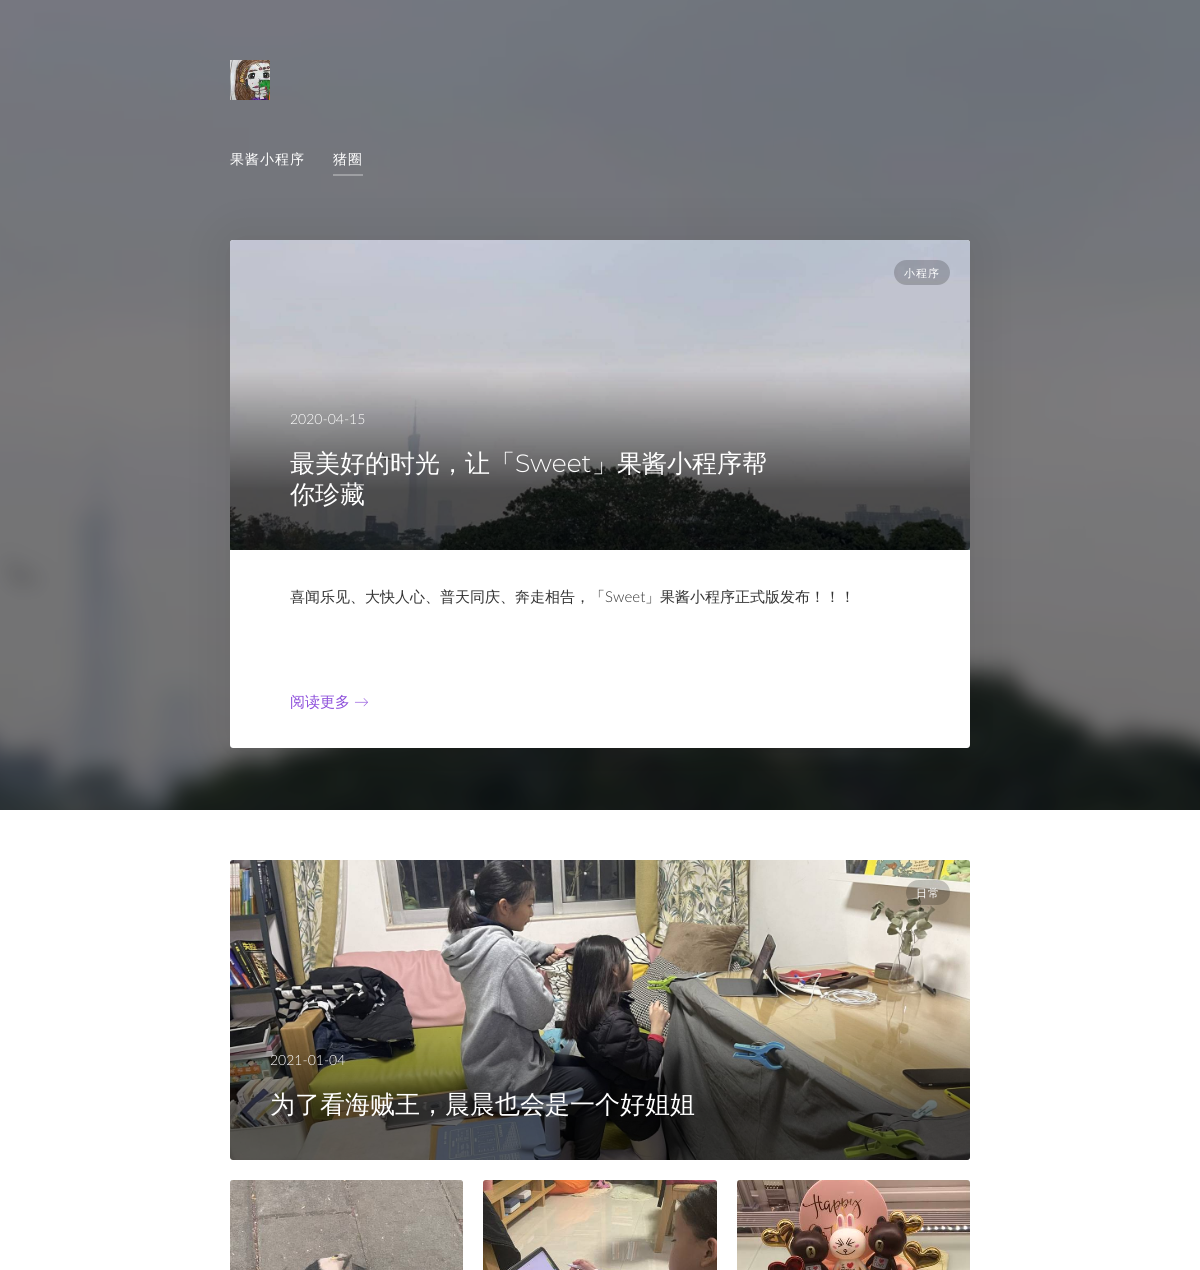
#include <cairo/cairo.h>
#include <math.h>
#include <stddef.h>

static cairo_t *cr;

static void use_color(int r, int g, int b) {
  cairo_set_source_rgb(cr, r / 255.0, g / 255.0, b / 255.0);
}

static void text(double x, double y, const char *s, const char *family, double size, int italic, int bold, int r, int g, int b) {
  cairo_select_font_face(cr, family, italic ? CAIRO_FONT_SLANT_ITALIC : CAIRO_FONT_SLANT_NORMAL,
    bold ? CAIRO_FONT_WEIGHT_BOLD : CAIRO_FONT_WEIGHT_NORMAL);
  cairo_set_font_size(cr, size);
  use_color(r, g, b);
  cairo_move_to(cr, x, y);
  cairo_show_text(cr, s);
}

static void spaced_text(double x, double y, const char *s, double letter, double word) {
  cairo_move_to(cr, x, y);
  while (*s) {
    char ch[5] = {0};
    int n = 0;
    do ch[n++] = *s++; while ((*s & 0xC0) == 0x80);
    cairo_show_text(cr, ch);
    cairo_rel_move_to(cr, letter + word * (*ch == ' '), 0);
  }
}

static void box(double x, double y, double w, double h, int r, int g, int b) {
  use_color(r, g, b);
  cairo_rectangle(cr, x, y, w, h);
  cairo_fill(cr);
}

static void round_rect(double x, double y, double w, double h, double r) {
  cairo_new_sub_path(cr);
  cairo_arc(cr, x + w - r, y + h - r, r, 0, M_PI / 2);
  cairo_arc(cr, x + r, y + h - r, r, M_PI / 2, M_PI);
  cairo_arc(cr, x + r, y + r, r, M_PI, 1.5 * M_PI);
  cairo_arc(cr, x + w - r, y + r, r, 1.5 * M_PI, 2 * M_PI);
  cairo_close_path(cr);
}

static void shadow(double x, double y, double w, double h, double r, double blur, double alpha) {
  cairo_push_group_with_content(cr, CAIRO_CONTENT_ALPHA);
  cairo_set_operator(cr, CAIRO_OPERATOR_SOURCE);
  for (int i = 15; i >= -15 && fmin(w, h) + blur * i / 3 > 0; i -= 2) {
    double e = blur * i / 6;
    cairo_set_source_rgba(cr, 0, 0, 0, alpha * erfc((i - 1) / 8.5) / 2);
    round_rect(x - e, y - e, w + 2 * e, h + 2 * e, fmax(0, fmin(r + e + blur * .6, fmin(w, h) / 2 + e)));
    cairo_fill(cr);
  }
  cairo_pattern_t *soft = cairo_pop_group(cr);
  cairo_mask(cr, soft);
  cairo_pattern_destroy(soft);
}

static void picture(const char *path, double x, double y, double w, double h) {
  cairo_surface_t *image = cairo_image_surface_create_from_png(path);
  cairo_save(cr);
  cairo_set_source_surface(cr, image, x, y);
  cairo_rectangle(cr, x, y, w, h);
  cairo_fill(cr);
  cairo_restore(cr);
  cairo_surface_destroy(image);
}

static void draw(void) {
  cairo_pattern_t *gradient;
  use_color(255, 255, 255);
  cairo_paint(cr);
  picture("img_02.png", 0, 0, 1200, 810);
  picture("img_01.png", 230, 60, 40, 40);
  use_color(0, 0, 0);
  shadow(230, 240, 740, 508, 3, 27.5, 0.1);
  box(333, 174, 30, 2, 158, 159, 163);
  use_color(255, 255, 255);
  round_rect(230, 240, 740, 508, 3);
  cairo_fill(cr);
  picture("img_03.png", 230, 240, 740, 310);
  cairo_set_source_rgba(cr, 0, 0, 0, 0.2);
  round_rect(894, 260, 56, 25, 12.5);
  cairo_fill(cr);
  picture("img_04.png", 230, 860, 740, 300);
  round_rect(906, 880, 44, 25, 12.5);
  cairo_fill(cr);
  gradient = cairo_pattern_create_linear(600, 1010, 600, 1160);
  cairo_pattern_add_color_stop_rgba(gradient, 0, 0, 0, 0, 0);
  cairo_pattern_add_color_stop_rgba(gradient, 0.67, 0, 0, 0, 0.6);
  cairo_set_source(cr, gradient);
  cairo_pattern_destroy(gradient);
  cairo_new_path(cr);
  cairo_move_to(cr, 230, 1010);
  cairo_line_to(cr, 970, 1010);
  cairo_line_to(cr, 970, 1157);
  cairo_curve_to(cr, 970, 1158.5, 968.5, 1160, 967, 1160);
  cairo_line_to(cr, 233, 1160);
  cairo_curve_to(cr, 231.5, 1160, 230, 1158.5, 230, 1157);
  cairo_close_path(cr);
  cairo_fill(cr);
  picture("img_05.png", 230, 1180, 233, 90);
  picture("img_06.png", 483, 1180, 234, 90);
  picture("img_07.png", 737, 1180, 233, 90);
  cairo_select_font_face(cr, "WenQuanYi Zen Hei Medium", CAIRO_FONT_SLANT_NORMAL, CAIRO_FONT_WEIGHT_NORMAL);
  cairo_set_font_size(cr, 14);
  use_color(255, 255, 255);
  spaced_text(230, 164, "果酱小程序", 1, 0);
  spaced_text(333, 164, "猪圈", 1, 0);
  cairo_set_font_size(cr, 11);
  spaced_text(904, 277, "小程序", 1, 0);
  text(290, 424, "2020-04-15", "Lato Light", 14, 0, 0, 255, 255, 255);
  text(290, 472, "最美好的时光，让「", "WenQuanYi Zen Hei Medium", 25, 0, 0, 255, 255, 255);
  text(515, 472, "Sweet", "Montserrat Light", 25, 0, 0, 255, 255, 255);
  text(592, 472, "」果酱小程序帮", "WenQuanYi Zen Hei Medium", 25, 0, 0, 255, 255, 255);
  text(290, 503, "你珍藏", "WenQuanYi Zen Hei Medium", 25, 0, 0, 255, 255, 255);
  text(290, 602, "喜闻乐见、大快人心、普天同庆、奔走相告，「", "WenQuanYi Zen Hei Medium", 15, 0, 0, 51, 51, 51);
  text(605, 602, "Sweet", "Lato Light", 15, 0, 0, 51, 51, 51);
  text(645, 602, "」果酱小程序正式版发布！！！", "WenQuanYi Zen Hei Medium", 15, 0, 0, 51, 51, 51);
  text(290, 707, "阅读更多", "WenQuanYi Zen Hei Medium", 15, 0, 0, 141, 79, 219);
  text(354, 707, "→", "Lato Light", 15, 0, 0, 141, 79, 219);
  cairo_select_font_face(cr, "WenQuanYi Zen Hei Medium", CAIRO_FONT_SLANT_NORMAL, CAIRO_FONT_WEIGHT_NORMAL);
  cairo_set_font_size(cr, 11);
  use_color(255, 255, 255);
  spaced_text(916, 897, "日常", 1, 0);
  text(270, 1065, "2021-01-04", "Lato Light", 14, 0, 0, 255, 255, 255);
  text(270, 1113, "为了看海贼王，晨晨也会是一个好姐姐", "WenQuanYi Zen Hei Medium", 25, 0, 0, 255, 255, 255);
}

int main(void) {
  cairo_surface_t *surface = cairo_image_surface_create(CAIRO_FORMAT_RGB24, 1200, 1270);
  cr = cairo_create(surface);
  cairo_font_options_t *options = cairo_font_options_create();
  cairo_font_options_set_hint_metrics(options, CAIRO_HINT_METRICS_OFF);
  cairo_font_options_set_hint_style(options, CAIRO_HINT_STYLE_NONE);
  cairo_set_font_options(cr, options);
  cairo_set_miter_limit(cr, 4);
  draw();
  cairo_surface_write_to_png(surface, "out.png");
  cairo_font_options_destroy(options);
  cairo_destroy(cr);
  cairo_surface_destroy(surface);
  return 0;
}
